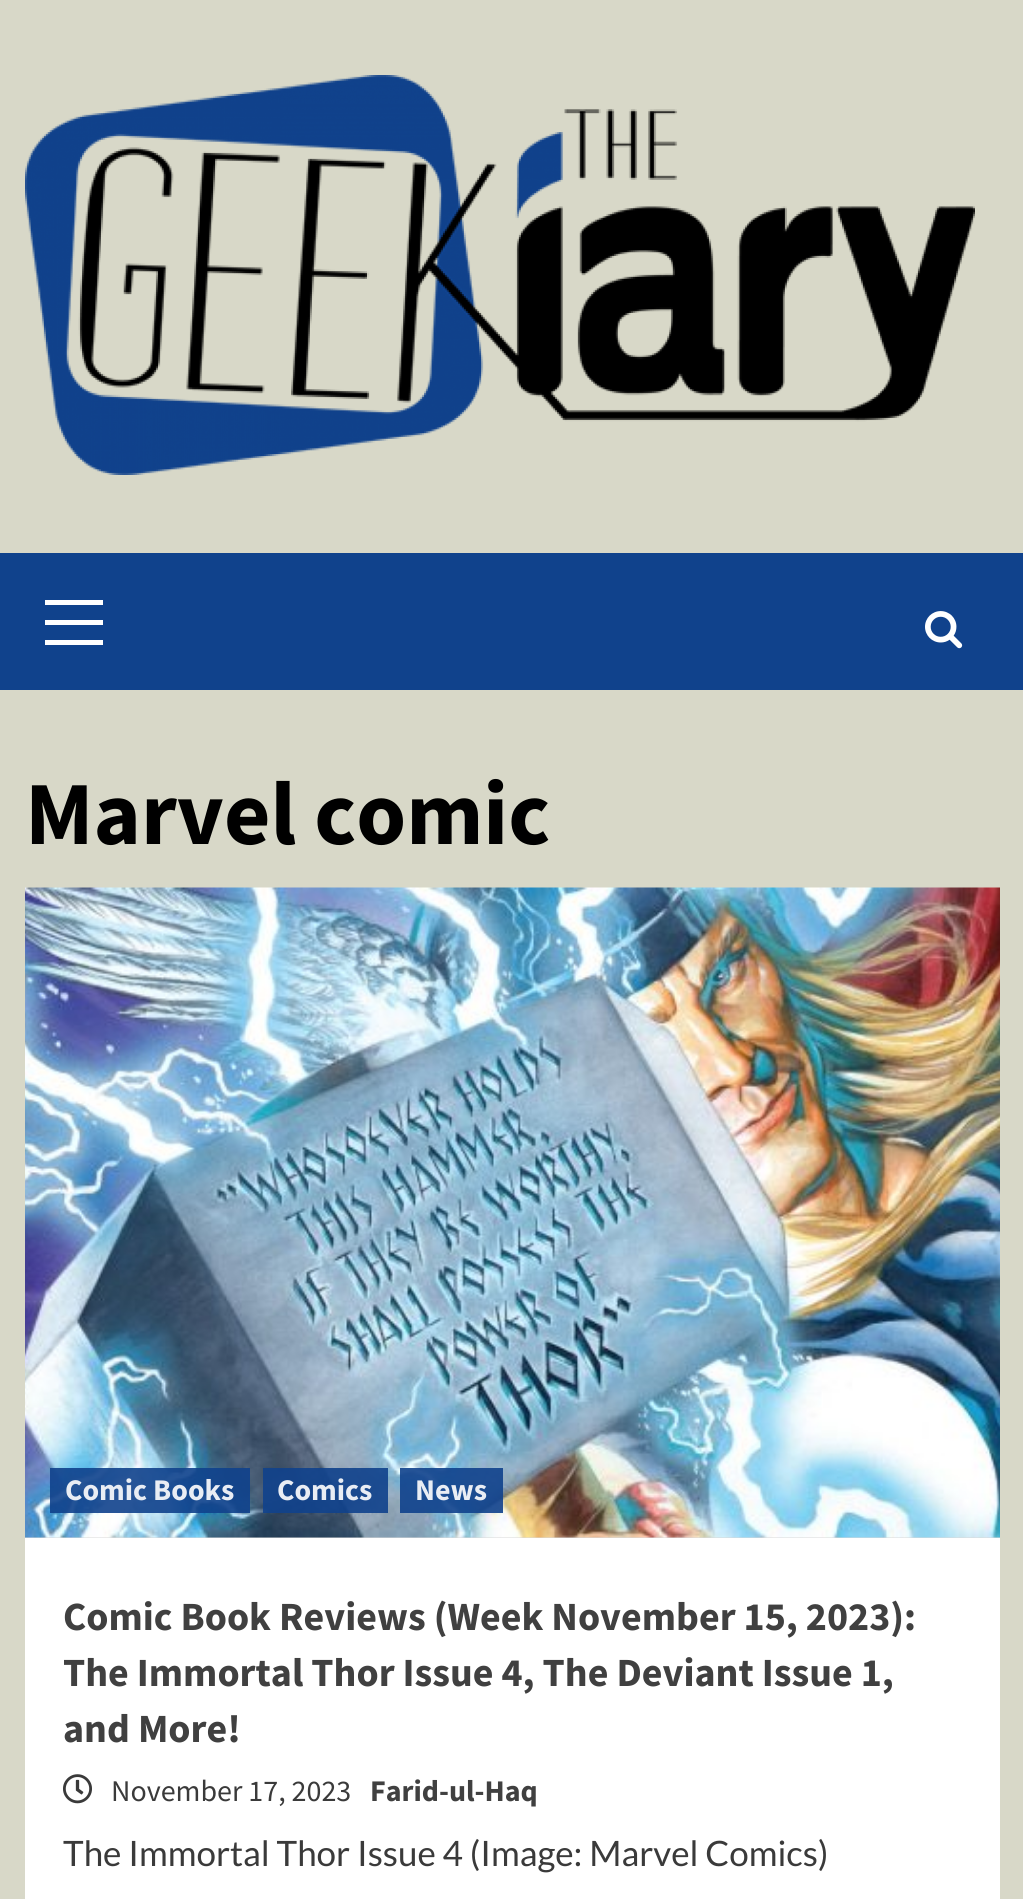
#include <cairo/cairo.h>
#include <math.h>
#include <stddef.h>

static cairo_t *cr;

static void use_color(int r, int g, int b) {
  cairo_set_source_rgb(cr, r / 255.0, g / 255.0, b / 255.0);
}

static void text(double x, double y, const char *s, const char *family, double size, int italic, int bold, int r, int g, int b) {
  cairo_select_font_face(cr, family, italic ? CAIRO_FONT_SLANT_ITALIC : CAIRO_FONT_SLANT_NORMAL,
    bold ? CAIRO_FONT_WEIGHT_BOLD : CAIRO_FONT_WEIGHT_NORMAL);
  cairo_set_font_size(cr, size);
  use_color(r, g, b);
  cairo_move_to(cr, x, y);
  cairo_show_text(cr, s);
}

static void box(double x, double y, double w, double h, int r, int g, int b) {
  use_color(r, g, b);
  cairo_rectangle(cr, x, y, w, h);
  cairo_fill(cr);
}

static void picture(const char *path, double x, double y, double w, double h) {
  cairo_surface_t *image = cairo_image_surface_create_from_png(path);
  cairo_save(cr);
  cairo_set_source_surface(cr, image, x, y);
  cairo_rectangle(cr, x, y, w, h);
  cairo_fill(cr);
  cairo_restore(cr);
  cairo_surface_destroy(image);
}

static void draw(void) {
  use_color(216, 216, 200);
  cairo_paint(cr);
  picture("img_01.png", 25, 75, 950, 400);
  box(0, 553, 1023, 137, 16, 66, 140);
  box(45, 620, 58, 5, 255, 255, 255);
  box(45, 600, 58, 5, 255, 255, 255);
  box(45, 640, 58, 5, 255, 255, 255);
  picture("img_02.png", 925, 611, 38, 38);
  box(25, 1538, 975, 361, 255, 255, 255);
  box(25, 1537, 975, 1, 216, 216, 216);
  picture("img_03.png", 25, 887, 975, 651);
  cairo_set_source_rgba(cr, 0.063, 0.259, 0.549, 0.9);
  cairo_rectangle(cr, 50, 1468, 200, 45);
  cairo_fill(cr);
  cairo_rectangle(cr, 263, 1468, 125, 45);
  cairo_fill(cr);
  cairo_rectangle(cr, 400, 1468, 103, 45);
  cairo_fill(cr);
  picture("img_04.png", 63, 1774, 29, 30);
  text(25, 844, "Marvel comic", "Source Sans Pro", 90, 0, 1, 0, 0, 0);
  text(65, 1500, "Comic Books", "Source Sans Pro", 30, 0, 1, 233, 237, 244);
  text(277, 1500, "Comics", "Source Sans Pro", 30, 0, 1, 233, 237, 244);
  text(415, 1500, "News", "Source Sans Pro", 30, 0, 1, 233, 237, 244);
  text(63, 1630, "Comic Book Reviews (Week November 15, 2023):", "Source Sans Pro", 40, 0, 1, 64, 64, 64);
  text(63, 1686, "The Immortal Thor Issue 4, The Deviant Issue 1,", "Source Sans Pro", 40, 0, 1, 64, 64, 64);
  text(63, 1742, "and More!", "Source Sans Pro", 40, 0, 1, 64, 64, 64);
  text(111, 1801, "November 17, 2023", "Source Sans Pro", 30, 0, 0, 58, 58, 58);
  text(370, 1801, "Farid-ul-Haq", "Source Sans Pro", 30, 0, 1, 64, 64, 64);
  text(63, 1866, "The Immortal Thor Issue 4 (Image: Marvel Comics)", "Lato", 35, 0, 0, 58, 58, 58);
}

int main(void) {
  cairo_surface_t *surface = cairo_image_surface_create(CAIRO_FORMAT_RGB24, 1023, 1899);
  cr = cairo_create(surface);
  cairo_font_options_t *options = cairo_font_options_create();
  cairo_font_options_set_hint_metrics(options, CAIRO_HINT_METRICS_OFF);
  cairo_font_options_set_hint_style(options, CAIRO_HINT_STYLE_NONE);
  cairo_set_font_options(cr, options);
  cairo_set_miter_limit(cr, 4);
  draw();
  cairo_surface_write_to_png(surface, "out.png");
  cairo_font_options_destroy(options);
  cairo_destroy(cr);
  cairo_surface_destroy(surface);
  return 0;
}
